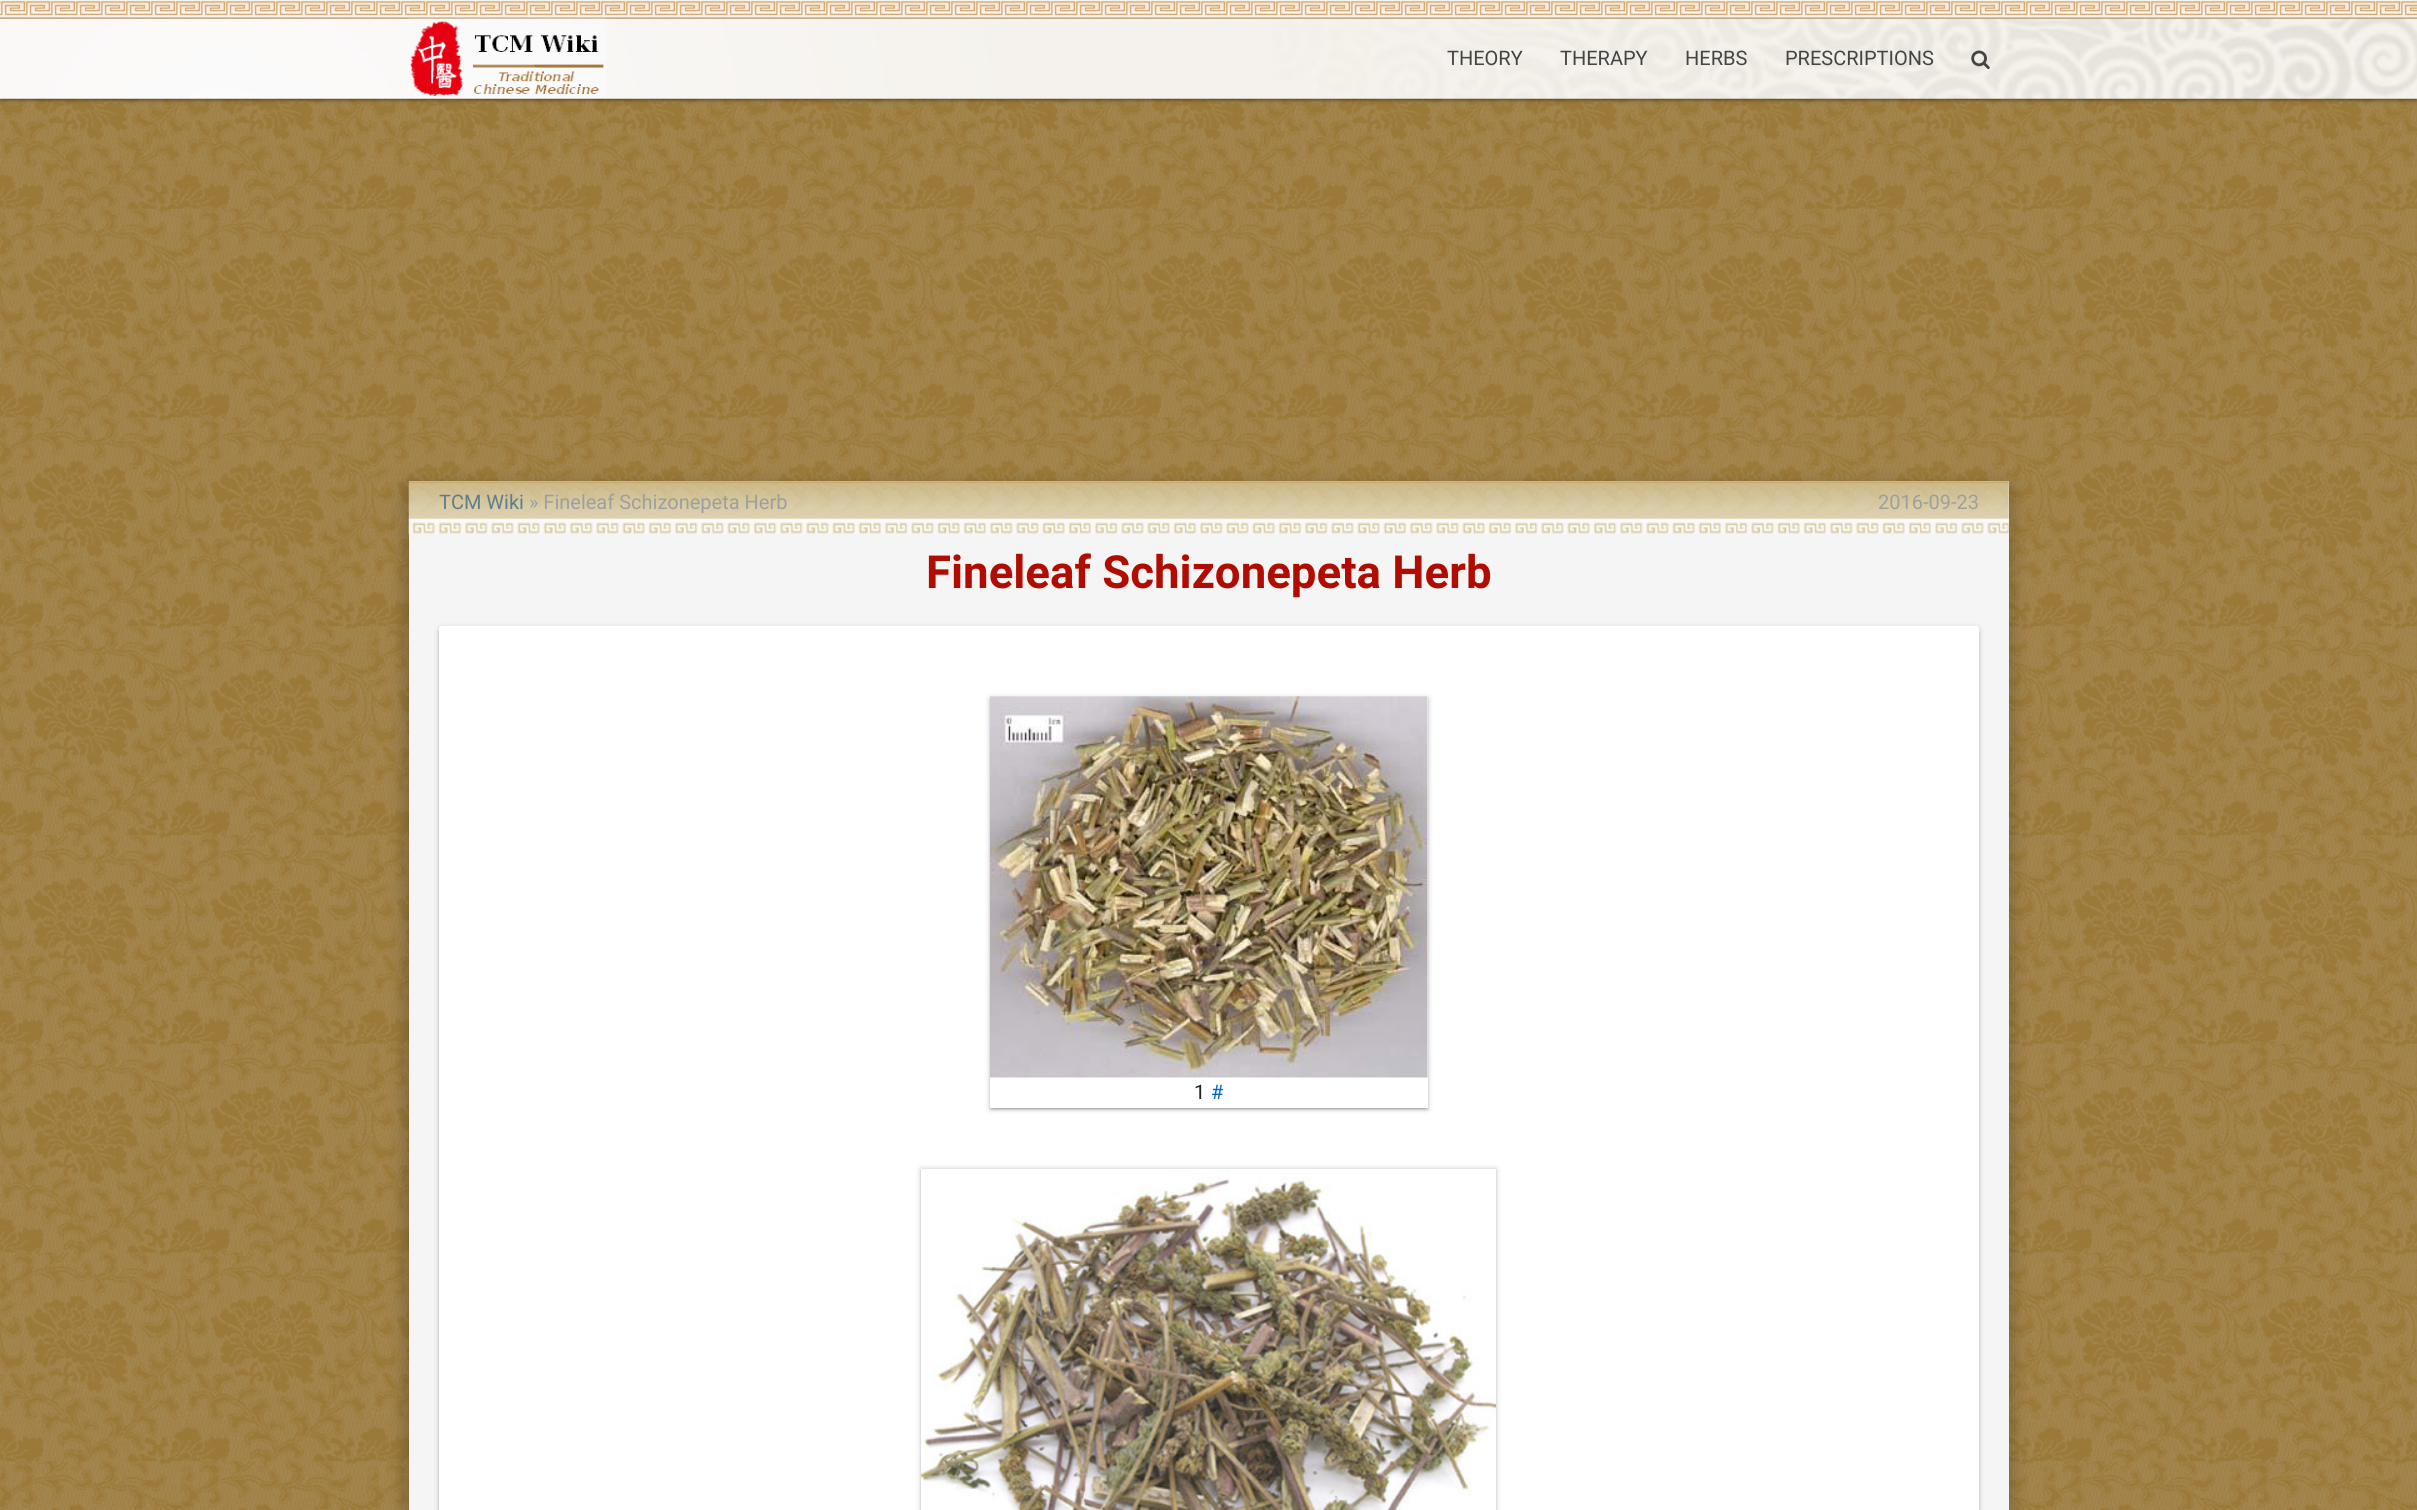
#include <cairo/cairo.h>
#include <math.h>
#include <stddef.h>

static cairo_t *cr;

static void use_color(int r, int g, int b) {
  cairo_set_source_rgb(cr, r / 255.0, g / 255.0, b / 255.0);
}

static void text(double x, double y, const char *s, const char *family, double size, int italic, int bold, int r, int g, int b) {
  cairo_select_font_face(cr, family, italic ? CAIRO_FONT_SLANT_ITALIC : CAIRO_FONT_SLANT_NORMAL,
    bold ? CAIRO_FONT_WEIGHT_BOLD : CAIRO_FONT_WEIGHT_NORMAL);
  cairo_set_font_size(cr, size);
  use_color(r, g, b);
  cairo_move_to(cr, x, y);
  cairo_show_text(cr, s);
}

static void box(double x, double y, double w, double h, int r, int g, int b) {
  use_color(r, g, b);
  cairo_rectangle(cr, x, y, w, h);
  cairo_fill(cr);
}

static void round_rect(double x, double y, double w, double h, double r) {
  cairo_new_sub_path(cr);
  cairo_arc(cr, x + w - r, y + h - r, r, 0, M_PI / 2);
  cairo_arc(cr, x + r, y + h - r, r, M_PI / 2, M_PI);
  cairo_arc(cr, x + r, y + r, r, M_PI, 1.5 * M_PI);
  cairo_arc(cr, x + w - r, y + r, r, 1.5 * M_PI, 2 * M_PI);
  cairo_close_path(cr);
}

static void shadow(double x, double y, double w, double h, double r, double blur, double alpha) {
  cairo_push_group_with_content(cr, CAIRO_CONTENT_ALPHA);
  cairo_set_operator(cr, CAIRO_OPERATOR_SOURCE);
  for (int i = 15; i >= -15 && fmin(w, h) + blur * i / 3 > 0; i -= 2) {
    double e = blur * i / 6;
    cairo_set_source_rgba(cr, 0, 0, 0, alpha * erfc((i - 1) / 8.5) / 2);
    round_rect(x - e, y - e, w + 2 * e, h + 2 * e, fmax(0, fmin(r + e + blur * .6, fmin(w, h) / 2 + e)));
    cairo_fill(cr);
  }
  cairo_pattern_t *soft = cairo_pop_group(cr);
  cairo_mask(cr, soft);
  cairo_pattern_destroy(soft);
}

static void picture(const char *path, double x, double y, double w, double h) {
  cairo_surface_t *image = cairo_image_surface_create_from_png(path);
  cairo_save(cr);
  cairo_set_source_surface(cr, image, x, y);
  cairo_rectangle(cr, x, y, w, h);
  cairo_fill(cr);
  cairo_restore(cr);
  cairo_surface_destroy(image);
}

static void draw(void) {
  use_color(255, 255, 255);
  cairo_paint(cr);
  picture("img_01.png", 0, 18, 2417, 1492);
  picture("img_02.png", 0, 0, 2417, 19);
  use_color(0, 0, 0);
  shadow(0, 20, 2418, 80, 0, 3, 0.2);
  shadow(3, 25, 2412, 75, 0, 0.5, 0.12);
  shadow(0, 21, 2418, 80, 0, 1, 0.14);
  picture("img_03.png", 0, 18, 2417, 81);
  picture("img_04.png", 408, 18, 199, 80);
  picture("img_05.png", 1971, 50, 19, 20);
  shadow(406, 483, 1605, 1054, 0, 9, 0.12);
  shadow(406, 489, 1605, 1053, 0, 10.5, 0.14);
  box(409, 481, 1600, 1029, 245, 245, 245);
  picture("img_06.png", 408, 481, 1601, 53);
  use_color(0, 0, 0);
  shadow(439, 628, 1540, 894, 2.5, 3, 0.2);
  shadow(439, 629, 1540, 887, 2.5, 1, 0.14);
  use_color(255, 255, 255);
  round_rect(439, 626, 1540, 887, 2.5);
  cairo_fill(cr);
  cairo_save(cr);
  cairo_set_fill_rule(cr, CAIRO_FILL_RULE_EVEN_ODD);
  cairo_new_path(cr);
  cairo_move_to(cr, 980, 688);
  cairo_line_to(cr, 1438, 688);
  cairo_line_to(cr, 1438, 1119);
  cairo_line_to(cr, 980, 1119);
  cairo_close_path(cr);
  cairo_move_to(cr, 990, 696);
  cairo_line_to(cr, 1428, 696);
  cairo_line_to(cr, 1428, 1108);
  cairo_line_to(cr, 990, 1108);
  cairo_close_path(cr);
  cairo_clip(cr);
  use_color(0, 0, 0);
  shadow(990, 698, 438, 411, 0, 3, 0.2);
  cairo_restore(cr);
  cairo_save(cr);
  cairo_set_fill_rule(cr, CAIRO_FILL_RULE_EVEN_ODD);
  cairo_new_path(cr);
  cairo_move_to(cr, 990, 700);
  cairo_line_to(cr, 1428, 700);
  cairo_line_to(cr, 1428, 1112);
  cairo_line_to(cr, 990, 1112);
  cairo_close_path(cr);
  cairo_move_to(cr, 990, 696);
  cairo_line_to(cr, 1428, 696);
  cairo_line_to(cr, 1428, 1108);
  cairo_line_to(cr, 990, 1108);
  cairo_close_path(cr);
  cairo_clip(cr);
  use_color(0, 0, 0);
  shadow(993, 703, 432, 406, 0, 0.5, 0.12);
  cairo_restore(cr);
  cairo_save(cr);
  cairo_set_fill_rule(cr, CAIRO_FILL_RULE_EVEN_ODD);
  cairo_new_path(cr);
  cairo_move_to(cr, 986, 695);
  cairo_line_to(cr, 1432, 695);
  cairo_line_to(cr, 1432, 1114);
  cairo_line_to(cr, 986, 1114);
  cairo_close_path(cr);
  cairo_move_to(cr, 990, 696);
  cairo_line_to(cr, 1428, 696);
  cairo_line_to(cr, 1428, 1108);
  cairo_line_to(cr, 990, 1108);
  cairo_close_path(cr);
  cairo_clip(cr);
  use_color(0, 0, 0);
  shadow(990, 699, 438, 411, 0, 1, 0.14);
  cairo_restore(cr);
  picture("img_07.png", 990, 696, 438, 382);
  use_color(0, 0, 0);
  shadow(921, 1169, 575, 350, 0, 3, 0.2);
  shadow(921, 1170, 575, 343, 0, 1, 0.14);
  picture("img_08.png", 921, 1169, 575, 341);
  text(1447, 65, "THEORY", "Roboto", 20, 0, 0, 68, 68, 68);
  text(1560, 65, "THERAPY", "Roboto", 20, 0, 0, 68, 68, 68);
  text(1685, 65, "HERBS", "Roboto", 20, 0, 0, 68, 68, 68);
  text(1785, 65, "PRESCRIPTIONS", "Roboto", 20, 0, 0, 68, 68, 68);
  text(439, 509, "TCM Wiki", "Roboto", 20, 0, 0, 96, 125, 139);
  text(529, 509, "» Fineleaf Schizonepeta Herb", "Roboto", 20, 0, 0, 158, 158, 158);
  text(1878, 509, "2016-09-23", "Roboto", 20, 0, 0, 158, 158, 158);
  text(926, 588, "Fineleaf Schizonepeta Herb", "Roboto", 45.6, 0, 1, 177, 12, 1);
  text(1194, 1099, "1", "Roboto", 20, 0, 0, 33, 33, 33);
  text(1211, 1099, "#", "Roboto", 20, 0, 0, 2, 104, 205);
}

int main(void) {
  cairo_surface_t *surface = cairo_image_surface_create(CAIRO_FORMAT_RGB24, 2417, 1510);
  cr = cairo_create(surface);
  cairo_font_options_t *options = cairo_font_options_create();
  cairo_font_options_set_hint_metrics(options, CAIRO_HINT_METRICS_OFF);
  cairo_font_options_set_hint_style(options, CAIRO_HINT_STYLE_NONE);
  cairo_set_font_options(cr, options);
  cairo_set_miter_limit(cr, 4);
  draw();
  cairo_surface_write_to_png(surface, "out.png");
  cairo_font_options_destroy(options);
  cairo_destroy(cr);
  cairo_surface_destroy(surface);
  return 0;
}
